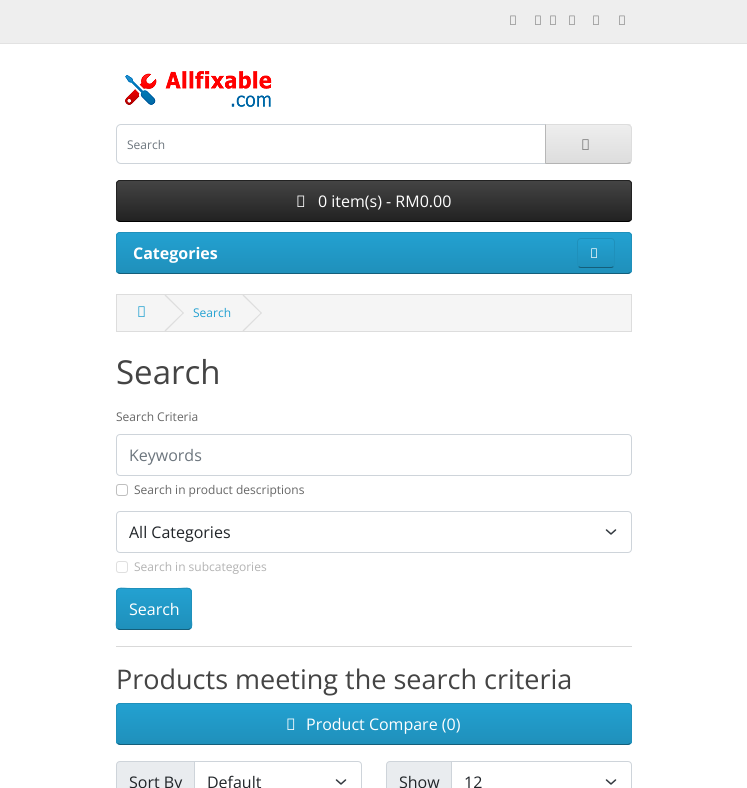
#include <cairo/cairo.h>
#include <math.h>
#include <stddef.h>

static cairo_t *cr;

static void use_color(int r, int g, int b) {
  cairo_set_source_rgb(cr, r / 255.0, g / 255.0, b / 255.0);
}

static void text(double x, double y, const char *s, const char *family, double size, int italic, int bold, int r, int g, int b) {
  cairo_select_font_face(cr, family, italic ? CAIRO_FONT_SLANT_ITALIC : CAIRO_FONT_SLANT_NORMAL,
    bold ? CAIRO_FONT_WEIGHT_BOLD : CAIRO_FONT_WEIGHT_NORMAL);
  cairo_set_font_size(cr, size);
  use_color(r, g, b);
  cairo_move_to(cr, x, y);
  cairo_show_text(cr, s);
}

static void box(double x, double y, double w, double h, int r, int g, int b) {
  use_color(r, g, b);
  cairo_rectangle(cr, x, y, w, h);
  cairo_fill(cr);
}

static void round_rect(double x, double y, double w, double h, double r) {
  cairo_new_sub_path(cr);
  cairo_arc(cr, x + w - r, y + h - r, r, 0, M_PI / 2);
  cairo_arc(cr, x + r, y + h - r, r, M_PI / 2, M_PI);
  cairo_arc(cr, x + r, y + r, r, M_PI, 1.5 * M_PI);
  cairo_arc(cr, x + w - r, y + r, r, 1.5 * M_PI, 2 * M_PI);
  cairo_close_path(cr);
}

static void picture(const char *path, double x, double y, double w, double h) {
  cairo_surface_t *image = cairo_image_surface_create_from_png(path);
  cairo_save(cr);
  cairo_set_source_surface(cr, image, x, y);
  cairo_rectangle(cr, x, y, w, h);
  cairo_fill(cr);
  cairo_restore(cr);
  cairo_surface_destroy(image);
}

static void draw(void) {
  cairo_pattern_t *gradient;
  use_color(255, 255, 255);
  cairo_paint(cr);
  box(0, 0, 747, 43, 238, 238, 238);
  box(0, 43, 747, 1, 226, 226, 226);
  picture("img_01.png", 510, 15, 6, 10);
  picture("img_01.png", 535, 15, 6, 10);
  picture("img_01.png", 550, 15, 6, 10);
  picture("img_01.png", 569, 15, 6, 10);
  picture("img_01.png", 593, 15, 6, 10);
  picture("img_01.png", 619, 15, 6, 10);
  picture("img_02.png", 125, 71, 147, 36);
  cairo_new_path(cr);
  cairo_move_to(cr, 121, 124.5);
  cairo_line_to(cr, 545.5, 124.5);
  cairo_line_to(cr, 545.5, 163.5);
  cairo_line_to(cr, 121, 163.5);
  cairo_curve_to(cr, 118.5, 163.5, 116.5, 161.5, 116.5, 159);
  cairo_line_to(cr, 116.5, 129);
  cairo_curve_to(cr, 116.5, 126.5, 118.5, 124.5, 121, 124.5);
  cairo_close_path(cr);
  use_color(206, 212, 218);
  cairo_set_line_width(cr, 1);
  cairo_stroke(cr);
  cairo_save(cr);
  cairo_new_path(cr);
  cairo_move_to(cr, 545, 124);
  cairo_line_to(cr, 627, 124);
  cairo_curve_to(cr, 630, 124, 632, 126, 632, 129);
  cairo_line_to(cr, 632, 159);
  cairo_curve_to(cr, 632, 162, 630, 164, 627, 164);
  cairo_line_to(cr, 545, 164);
  cairo_close_path(cr);
  cairo_clip(cr);
  gradient = cairo_pattern_create_linear(589, 125, 589, 163);
  cairo_pattern_add_color_stop_rgba(gradient, 0, 0.933, 0.933, 0.933, 1);
  cairo_pattern_add_color_stop_rgba(gradient, 1, 0.867, 0.867, 0.867, 1);
  cairo_set_source(cr, gradient);
  cairo_pattern_destroy(gradient);
  cairo_rectangle(cr, 546, 125, 86, 38);
  cairo_fill(cr);
  cairo_restore(cr);
  use_color(221, 221, 221);
  cairo_new_path(cr);
  cairo_move_to(cr, 545, 124);
  cairo_line_to(cr, 546, 125);
  cairo_line_to(cr, 627, 125);
  cairo_line_to(cr, 630, 126);
  cairo_line_to(cr, 631, 125);
  cairo_curve_to(cr, 630, 124, 628, 124, 627, 124);
  cairo_close_path(cr);
  cairo_fill(cr);
  cairo_new_path(cr);
  cairo_move_to(cr, 632, 159);
  cairo_line_to(cr, 632, 129);
  cairo_curve_to(cr, 632, 127.5, 631.5, 126, 630.5, 125.5);
  cairo_line_to(cr, 630, 126);
  cairo_curve_to(cr, 630.5, 127, 631, 128, 631, 129);
  cairo_line_to(cr, 631, 159);
  cairo_curve_to(cr, 631, 160, 630.5, 161, 630, 162);
  cairo_line_to(cr, 630.5, 162.5);
  cairo_curve_to(cr, 631.5, 162, 632, 160.5, 632, 159);
  cairo_close_path(cr);
  cairo_fill(cr);
  use_color(179, 179, 179);
  cairo_new_path(cr);
  cairo_move_to(cr, 627, 164);
  cairo_curve_to(cr, 628, 164, 630, 164, 631, 163);
  cairo_line_to(cr, 630, 162);
  cairo_line_to(cr, 627, 163);
  cairo_line_to(cr, 546, 163);
  cairo_line_to(cr, 545, 164);
  cairo_close_path(cr);
  cairo_fill(cr);
  use_color(183, 183, 183);
  cairo_new_path(cr);
  cairo_move_to(cr, 545, 124);
  cairo_line_to(cr, 545, 164);
  cairo_line_to(cr, 546, 163);
  cairo_line_to(cr, 546, 125);
  cairo_close_path(cr);
  cairo_fill(cr);
  picture("img_03.png", 582, 139, 7, 11);
  use_color(54, 54, 54);
  round_rect(116, 180, 516, 42, 4);
  cairo_fill(cr);
  cairo_save(cr);
  round_rect(116, 180, 516, 42, 4);
  cairo_clip(cr);
  gradient = cairo_pattern_create_linear(374, 181, 374, 221);
  cairo_pattern_add_color_stop_rgba(gradient, 0, 0.267, 0.267, 0.267, 1);
  cairo_pattern_add_color_stop_rgba(gradient, 1, 0.133, 0.133, 0.133, 1);
  cairo_set_source(cr, gradient);
  cairo_pattern_destroy(gradient);
  cairo_rectangle(cr, 116, 181, 516, 40);
  cairo_fill(cr);
  cairo_restore(cr);
  cairo_new_path(cr);
  cairo_move_to(cr, 630.5, 220.5);
  cairo_line_to(cr, 628, 221.5);
  cairo_line_to(cr, 120, 221.5);
  cairo_line_to(cr, 117.5, 220.5);
  use_color(0, 0, 0);
  cairo_stroke(cr);
  cairo_new_path(cr);
  cairo_move_to(cr, 117.5, 220.5);
  cairo_curve_to(cr, 117, 220, 116.5, 219, 116.5, 218);
  cairo_line_to(cr, 116.5, 184);
  cairo_curve_to(cr, 116.5, 183, 117, 182, 117.5, 181.5);
  cairo_curve_to(cr, 118, 181, 119, 180.5, 120, 180.5);
  cairo_line_to(cr, 628, 180.5);
  cairo_curve_to(cr, 629, 180.5, 630, 181, 630.5, 181.5);
  cairo_curve_to(cr, 631, 182, 631.5, 183, 631.5, 184);
  cairo_line_to(cr, 631.5, 218);
  cairo_curve_to(cr, 631.5, 219, 631, 220, 630.5, 220.5);
  use_color(34, 34, 34);
  cairo_stroke(cr);
  picture("img_04.png", 297, 195, 8, 12);
  use_color(34, 154, 200);
  round_rect(116, 232, 516, 42, 4);
  cairo_fill(cr);
  cairo_save(cr);
  round_rect(116, 232, 516, 42, 4);
  cairo_clip(cr);
  gradient = cairo_pattern_create_linear(374, 233, 374, 273);
  cairo_pattern_add_color_stop_rgba(gradient, 0, 0.137, 0.631, 0.82, 1);
  cairo_pattern_add_color_stop_rgba(gradient, 1, 0.122, 0.565, 0.733, 1);
  cairo_set_source(cr, gradient);
  cairo_pattern_destroy(gradient);
  cairo_rectangle(cr, 116, 233, 516, 40);
  cairo_fill(cr);
  cairo_restore(cr);
  cairo_new_path(cr);
  cairo_move_to(cr, 630.5, 272.5);
  cairo_line_to(cr, 628, 273.5);
  cairo_line_to(cr, 120, 273.5);
  cairo_line_to(cr, 117.5, 272.5);
  use_color(20, 94, 122);
  cairo_stroke(cr);
  cairo_new_path(cr);
  cairo_move_to(cr, 117.5, 272.5);
  cairo_curve_to(cr, 117, 272, 116.5, 271, 116.5, 270);
  cairo_line_to(cr, 116.5, 236);
  cairo_curve_to(cr, 116.5, 235, 117, 234, 117.5, 233.5);
  cairo_curve_to(cr, 118, 233, 119, 232.5, 120, 232.5);
  cairo_line_to(cr, 628, 232.5);
  cairo_curve_to(cr, 629, 232.5, 630, 233, 630.5, 233.5);
  cairo_curve_to(cr, 631, 234, 631.5, 235, 631.5, 236);
  cairo_line_to(cr, 631.5, 270);
  cairo_curve_to(cr, 631.5, 271, 631, 272, 630.5, 272.5);
  use_color(31, 144, 187);
  cairo_stroke(cr);
  cairo_save(cr);
  round_rect(577, 238, 38, 30, 4);
  cairo_clip(cr);
  gradient = cairo_pattern_create_linear(596, 239, 596, 267);
  cairo_pattern_add_color_stop_rgba(gradient, 0, 0.137, 0.631, 0.82, 1);
  cairo_pattern_add_color_stop_rgba(gradient, 1, 0.122, 0.565, 0.733, 1);
  cairo_set_source(cr, gradient);
  cairo_pattern_destroy(gradient);
  cairo_rectangle(cr, 577, 239, 38, 28);
  cairo_fill(cr);
  cairo_restore(cr);
  cairo_new_path(cr);
  cairo_move_to(cr, 613.5, 266.5);
  cairo_curve_to(cr, 613, 267, 612, 267.5, 611, 267.5);
  cairo_line_to(cr, 581, 267.5);
  cairo_curve_to(cr, 580, 267.5, 579, 267, 578.5, 266.5);
  use_color(20, 94, 122);
  cairo_stroke(cr);
  cairo_new_path(cr);
  cairo_move_to(cr, 578.5, 266.5);
  cairo_curve_to(cr, 578, 266, 577.5, 265, 577.5, 264);
  cairo_line_to(cr, 577.5, 242);
  cairo_curve_to(cr, 577.5, 241, 578, 240, 578.5, 239.5);
  cairo_curve_to(cr, 579, 239, 580, 238.5, 581, 238.5);
  cairo_line_to(cr, 611, 238.5);
  cairo_curve_to(cr, 612, 238.5, 613, 239, 613.5, 239.5);
  cairo_curve_to(cr, 614, 240, 614.5, 241, 614.5, 242);
  cairo_line_to(cr, 614.5, 264);
  cairo_curve_to(cr, 614.5, 265, 614, 266, 613.5, 266.5);
  use_color(31, 144, 187);
  cairo_stroke(cr);
  picture("img_05.png", 591, 248, 6, 10);
  use_color(245, 245, 245);
  cairo_rectangle(cr, 116.5, 294.5, 515, 37);
  cairo_fill_preserve(cr);
  use_color(221, 221, 221);
  cairo_stroke(cr);
  picture("img_06.png", 138, 306, 7, 11);
  cairo_new_path(cr);
  cairo_move_to(cr, 164.5, 295.5);
  cairo_line_to(cr, 165.5, 294.5);
  cairo_line_to(cr, 184, 313);
  cairo_line_to(cr, 183, 313.5);
  cairo_close_path(cr);
  cairo_fill(cr);
  cairo_new_path(cr);
  cairo_move_to(cr, 164.5, 330.5);
  cairo_line_to(cr, 183, 312.5);
  cairo_line_to(cr, 184, 313);
  cairo_line_to(cr, 165.5, 331.5);
  cairo_close_path(cr);
  cairo_fill(cr);
  cairo_new_path(cr);
  cairo_move_to(cr, 242.5, 295.5);
  cairo_line_to(cr, 243.5, 294.5);
  cairo_line_to(cr, 262, 313);
  cairo_line_to(cr, 261, 313.5);
  cairo_close_path(cr);
  cairo_fill(cr);
  cairo_new_path(cr);
  cairo_move_to(cr, 242.5, 330.5);
  cairo_line_to(cr, 261, 312.5);
  cairo_line_to(cr, 262, 313);
  cairo_line_to(cr, 243.5, 331.5);
  cairo_close_path(cr);
  cairo_fill(cr);
  round_rect(116.5, 434.5, 515, 41, 3.5);
  use_color(206, 212, 218);
  cairo_stroke(cr);
  round_rect(116.5, 484.5, 11, 11, 2.5);
  use_color(191, 191, 191);
  cairo_stroke(cr);
  cairo_new_path(cr);
  cairo_move_to(cr, 606.5, 530);
  cairo_line_to(cr, 611, 534);
  cairo_line_to(cr, 615.5, 530);
  use_color(52, 58, 64);
  cairo_set_line_width(cr, 1.5);
  cairo_set_line_cap(cr, CAIRO_LINE_CAP_ROUND);
  cairo_set_line_join(cr, CAIRO_LINE_JOIN_ROUND);
  cairo_stroke(cr);
  round_rect(116.5, 511.5, 515, 41, 3.5);
  use_color(206, 212, 218);
  cairo_set_line_width(cr, 1);
  cairo_set_line_cap(cr, CAIRO_LINE_CAP_BUTT);
  cairo_set_line_join(cr, CAIRO_LINE_JOIN_MITER);
  cairo_stroke(cr);
  round_rect(116.5, 561.5, 11, 11, 2.5);
  use_color(223, 223, 223);
  cairo_stroke(cr);
  use_color(34, 154, 200);
  round_rect(116, 588, 76, 42, 4);
  cairo_fill(cr);
  cairo_save(cr);
  round_rect(116, 588, 76, 42, 4);
  cairo_clip(cr);
  gradient = cairo_pattern_create_linear(154, 589, 154, 629);
  cairo_pattern_add_color_stop_rgba(gradient, 0, 0.137, 0.631, 0.82, 1);
  cairo_pattern_add_color_stop_rgba(gradient, 1, 0.122, 0.565, 0.733, 1);
  cairo_set_source(cr, gradient);
  cairo_pattern_destroy(gradient);
  cairo_rectangle(cr, 116, 589, 76, 40);
  cairo_fill(cr);
  cairo_restore(cr);
  cairo_new_path(cr);
  cairo_move_to(cr, 190.5, 628.5);
  cairo_line_to(cr, 188.5, 629.5);
  cairo_line_to(cr, 119.5, 629.5);
  cairo_line_to(cr, 117.5, 628.5);
  use_color(20, 94, 122);
  cairo_stroke(cr);
  cairo_new_path(cr);
  cairo_move_to(cr, 117.5, 628.5);
  cairo_curve_to(cr, 115.5, 626.5, 116.5, 622, 116.5, 620.5);
  cairo_line_to(cr, 116.5, 597.5);
  cairo_curve_to(cr, 116.5, 585.5, 118, 588.5, 131.5, 588.5);
  cairo_line_to(cr, 176.5, 588.5);
  cairo_curve_to(cr, 190, 588.5, 191.5, 585.5, 191.5, 597.5);
  cairo_line_to(cr, 191.5, 620.5);
  cairo_curve_to(cr, 191.5, 622, 192.5, 626.5, 190.5, 628.5);
  use_color(31, 144, 187);
  cairo_stroke(cr);
  box(116, 646, 516, 1, 217, 217, 217);
  use_color(34, 154, 200);
  round_rect(116, 703, 516, 42, 4);
  cairo_fill(cr);
  cairo_save(cr);
  round_rect(116, 703, 516, 42, 4);
  cairo_clip(cr);
  gradient = cairo_pattern_create_linear(374, 704, 374, 744);
  cairo_pattern_add_color_stop_rgba(gradient, 0, 0.137, 0.631, 0.82, 1);
  cairo_pattern_add_color_stop_rgba(gradient, 1, 0.122, 0.565, 0.733, 1);
  cairo_set_source(cr, gradient);
  cairo_pattern_destroy(gradient);
  cairo_rectangle(cr, 116, 704, 516, 40);
  cairo_fill(cr);
  cairo_restore(cr);
  cairo_new_path(cr);
  cairo_move_to(cr, 630.5, 743.5);
  cairo_line_to(cr, 628, 744.5);
  cairo_line_to(cr, 120, 744.5);
  cairo_line_to(cr, 117.5, 743.5);
  use_color(20, 94, 122);
  cairo_stroke(cr);
  cairo_new_path(cr);
  cairo_move_to(cr, 117.5, 743.5);
  cairo_curve_to(cr, 117, 743, 116.5, 742, 116.5, 741);
  cairo_line_to(cr, 116.5, 707);
  cairo_curve_to(cr, 116.5, 706, 117, 705, 117.5, 704.5);
  cairo_curve_to(cr, 118, 704, 119, 703.5, 120, 703.5);
  cairo_line_to(cr, 628, 703.5);
  cairo_curve_to(cr, 629, 703.5, 630, 704, 630.5, 704.5);
  cairo_curve_to(cr, 631, 705, 631.5, 706, 631.5, 707);
  cairo_line_to(cr, 631.5, 741);
  cairo_curve_to(cr, 631.5, 742, 631, 743, 630.5, 743.5);
  use_color(31, 144, 187);
  cairo_stroke(cr);
  picture("img_07.png", 287, 718, 8, 12);
  use_color(233, 236, 239);
  cairo_new_path(cr);
  cairo_move_to(cr, 120, 761.5);
  cairo_line_to(cr, 194.5, 761.5);
  cairo_line_to(cr, 194.5, 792.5);
  cairo_line_to(cr, 120, 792.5);
  cairo_curve_to(cr, 118, 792.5, 116.5, 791, 116.5, 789);
  cairo_line_to(cr, 116.5, 765);
  cairo_curve_to(cr, 116.5, 763, 118, 761.5, 120, 761.5);
  cairo_close_path(cr);
  cairo_fill_preserve(cr);
  use_color(206, 212, 218);
  cairo_stroke(cr);
  use_color(255, 255, 255);
  cairo_new_path(cr);
  cairo_move_to(cr, 194, 761);
  cairo_line_to(cr, 358, 761);
  cairo_curve_to(cr, 360, 761, 362, 763, 362, 765);
  cairo_line_to(cr, 362, 788);
  cairo_curve_to(cr, 362, 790, 360, 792, 358, 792);
  cairo_line_to(cr, 194, 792);
  cairo_close_path(cr);
  cairo_fill(cr);
  cairo_new_path(cr);
  cairo_move_to(cr, 336.5, 780);
  cairo_line_to(cr, 341, 784);
  cairo_line_to(cr, 345.5, 780);
  use_color(52, 58, 64);
  cairo_set_line_width(cr, 1.5);
  cairo_set_line_cap(cr, CAIRO_LINE_CAP_ROUND);
  cairo_set_line_join(cr, CAIRO_LINE_JOIN_ROUND);
  cairo_stroke(cr);
  cairo_new_path(cr);
  cairo_move_to(cr, 194.5, 761.5);
  cairo_line_to(cr, 358, 761.5);
  cairo_curve_to(cr, 360, 761.5, 361.5, 763, 361.5, 765);
  cairo_line_to(cr, 361.5, 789);
  cairo_curve_to(cr, 361.5, 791, 360, 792.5, 358, 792.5);
  cairo_line_to(cr, 194.5, 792.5);
  cairo_close_path(cr);
  use_color(206, 212, 218);
  cairo_set_line_width(cr, 1);
  cairo_set_line_cap(cr, CAIRO_LINE_CAP_BUTT);
  cairo_set_line_join(cr, CAIRO_LINE_JOIN_MITER);
  cairo_stroke(cr);
  use_color(233, 236, 239);
  cairo_new_path(cr);
  cairo_move_to(cr, 390, 761.5);
  cairo_line_to(cr, 451.5, 761.5);
  cairo_line_to(cr, 451.5, 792.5);
  cairo_line_to(cr, 390, 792.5);
  cairo_curve_to(cr, 388, 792.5, 386.5, 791, 386.5, 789);
  cairo_line_to(cr, 386.5, 765);
  cairo_curve_to(cr, 386.5, 763, 388, 761.5, 390, 761.5);
  cairo_close_path(cr);
  cairo_fill_preserve(cr);
  use_color(206, 212, 218);
  cairo_stroke(cr);
  use_color(255, 255, 255);
  cairo_new_path(cr);
  cairo_move_to(cr, 451, 761);
  cairo_line_to(cr, 628, 761);
  cairo_curve_to(cr, 630, 761, 632, 763, 632, 765);
  cairo_line_to(cr, 632, 788);
  cairo_curve_to(cr, 632, 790, 630, 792, 628, 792);
  cairo_line_to(cr, 451, 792);
  cairo_close_path(cr);
  cairo_fill(cr);
  cairo_new_path(cr);
  cairo_move_to(cr, 606.5, 780);
  cairo_line_to(cr, 611, 784);
  cairo_line_to(cr, 615.5, 780);
  use_color(52, 58, 64);
  cairo_set_line_width(cr, 1.5);
  cairo_set_line_cap(cr, CAIRO_LINE_CAP_ROUND);
  cairo_set_line_join(cr, CAIRO_LINE_JOIN_ROUND);
  cairo_stroke(cr);
  cairo_new_path(cr);
  cairo_move_to(cr, 451.5, 761.5);
  cairo_line_to(cr, 628, 761.5);
  cairo_curve_to(cr, 630, 761.5, 631.5, 763, 631.5, 765);
  cairo_line_to(cr, 631.5, 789);
  cairo_curve_to(cr, 631.5, 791, 630, 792.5, 628, 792.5);
  cairo_line_to(cr, 451.5, 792.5);
  cairo_close_path(cr);
  use_color(206, 212, 218);
  cairo_set_line_width(cr, 1);
  cairo_set_line_cap(cr, CAIRO_LINE_CAP_BUTT);
  cairo_set_line_join(cr, CAIRO_LINE_JOIN_MITER);
  cairo_stroke(cr);
  text(127, 149, "Search", "Open Sans", 12, 0, 0, 108, 117, 125);
  text(318, 207, "0 item(s) - RM0.00", "Open Sans", 16, 0, 0, 255, 255, 255);
  text(133, 259, "Categories", "Open Sans", 16, 0, 1, 255, 255, 255);
  text(193, 317, "Search", "Open Sans", 12, 0, 0, 35, 161, 209);
  text(116, 384, "Search", "Open Sans", 33, 0, 0, 68, 68, 68);
  text(116, 421, "Search Criteria", "Open Sans", 12, 0, 0, 102, 102, 102);
  text(129, 461, "Keywords", "Open Sans", 16, 0, 0, 108, 117, 125);
  text(134, 494, "Search in product descriptions", "Open Sans", 12, 0, 0, 102, 102, 102);
  text(129, 538, "All Categories", "Open Sans", 16, 0, 0, 33, 37, 41);
  text(134, 571, "Search in subcategories", "Open Sans", 12, 0, 0, 179, 179, 179);
  text(129, 615, "Search", "Open Sans", 16, 0, 0, 255, 255, 255);
  text(116, 689, "Products meeting the search criteria", "Open Sans", 27, 0, 0, 68, 68, 68);
  text(306, 730, "Product Compare (0)", "Open Sans", 16, 0, 0, 255, 255, 255);
  text(129, 788, "Sort By", "Open Sans", 16, 0, 0, 33, 37, 41);
  text(207, 788, "Default", "Open Sans", 16, 0, 0, 33, 37, 41);
  text(399, 788, "Show", "Open Sans", 16, 0, 0, 33, 37, 41);
  text(464, 788, "12", "Open Sans", 16, 0, 0, 33, 37, 41);
}

int main(void) {
  cairo_surface_t *surface = cairo_image_surface_create(CAIRO_FORMAT_RGB24, 747, 788);
  cr = cairo_create(surface);
  cairo_font_options_t *options = cairo_font_options_create();
  cairo_font_options_set_hint_metrics(options, CAIRO_HINT_METRICS_OFF);
  cairo_font_options_set_hint_style(options, CAIRO_HINT_STYLE_NONE);
  cairo_set_font_options(cr, options);
  cairo_set_miter_limit(cr, 4);
  draw();
  cairo_surface_write_to_png(surface, "out.png");
  cairo_font_options_destroy(options);
  cairo_destroy(cr);
  cairo_surface_destroy(surface);
  return 0;
}
